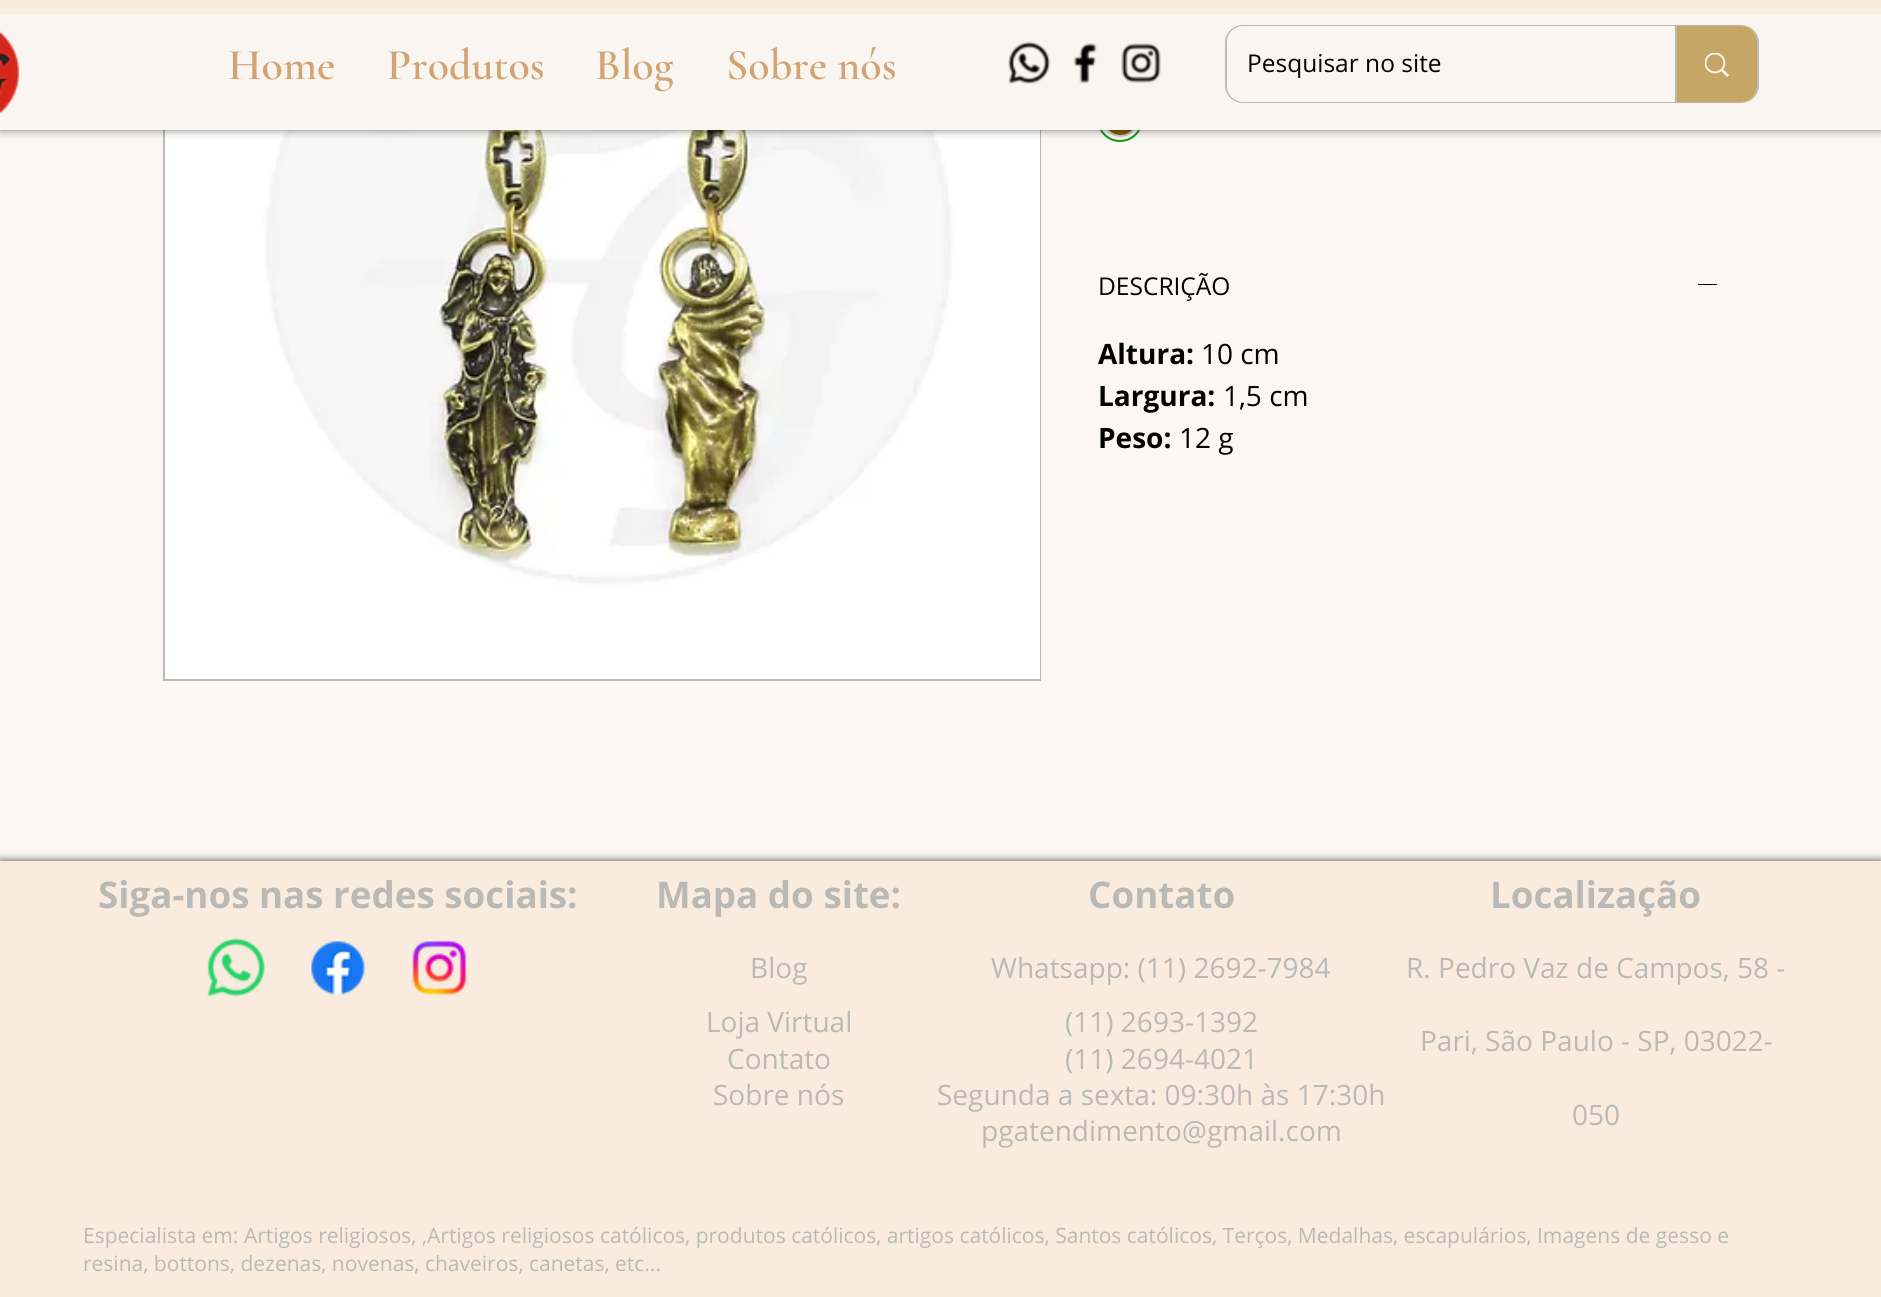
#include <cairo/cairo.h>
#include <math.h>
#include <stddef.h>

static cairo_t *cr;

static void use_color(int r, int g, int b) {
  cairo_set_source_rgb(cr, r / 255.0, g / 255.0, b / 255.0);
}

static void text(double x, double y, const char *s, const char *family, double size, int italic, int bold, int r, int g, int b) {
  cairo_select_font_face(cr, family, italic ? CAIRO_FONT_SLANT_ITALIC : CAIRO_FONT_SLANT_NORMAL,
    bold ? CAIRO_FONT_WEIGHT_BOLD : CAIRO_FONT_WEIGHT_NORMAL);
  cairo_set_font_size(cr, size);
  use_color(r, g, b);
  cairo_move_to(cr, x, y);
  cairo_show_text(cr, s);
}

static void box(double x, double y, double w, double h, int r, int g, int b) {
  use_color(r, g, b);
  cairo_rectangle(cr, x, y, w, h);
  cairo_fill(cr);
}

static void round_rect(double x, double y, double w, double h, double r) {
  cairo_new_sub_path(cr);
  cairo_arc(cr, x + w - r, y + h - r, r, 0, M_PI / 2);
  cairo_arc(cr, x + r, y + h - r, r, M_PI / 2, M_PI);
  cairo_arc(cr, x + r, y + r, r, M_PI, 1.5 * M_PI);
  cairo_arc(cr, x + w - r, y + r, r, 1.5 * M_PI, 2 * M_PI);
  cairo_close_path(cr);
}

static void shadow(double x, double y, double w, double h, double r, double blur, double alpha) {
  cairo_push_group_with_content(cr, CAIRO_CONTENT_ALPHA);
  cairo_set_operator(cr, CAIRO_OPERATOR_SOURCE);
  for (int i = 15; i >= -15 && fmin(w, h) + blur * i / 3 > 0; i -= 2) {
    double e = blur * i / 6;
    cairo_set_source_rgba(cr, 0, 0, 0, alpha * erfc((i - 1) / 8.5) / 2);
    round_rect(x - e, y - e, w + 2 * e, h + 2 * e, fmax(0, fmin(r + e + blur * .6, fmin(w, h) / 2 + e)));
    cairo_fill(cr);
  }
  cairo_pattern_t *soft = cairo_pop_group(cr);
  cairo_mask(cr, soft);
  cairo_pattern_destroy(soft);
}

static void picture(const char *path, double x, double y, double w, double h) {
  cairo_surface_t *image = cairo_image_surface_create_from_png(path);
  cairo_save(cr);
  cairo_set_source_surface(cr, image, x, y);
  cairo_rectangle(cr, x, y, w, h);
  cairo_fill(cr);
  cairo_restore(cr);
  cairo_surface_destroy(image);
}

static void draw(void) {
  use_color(252, 247, 244);
  cairo_paint(cr);
  cairo_rectangle(cr, 164, -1, 876, 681);
  use_color(187, 185, 181);
  cairo_stroke(cr);
  picture("img_06.png", 165, 130, 875, 549);
  cairo_arc(cr, 1120, 119, 22, 0, 2 * M_PI);
  use_color(11, 157, 11);
  cairo_stroke(cr);
  use_color(127, 96, 0);
  cairo_arc(cr, 1120.5, 119.5, 16.5, 0, 2 * M_PI);
  cairo_fill_preserve(cr);
  use_color(201, 201, 201);
  cairo_stroke(cr);
  use_color(0, 0, 0);
  shadow(0, 0, 1881, 130, 0, 4.5, 0.5);
  box(0, 0, 1881, 14, 249, 236, 222);
  box(0, 14, 1881, 116, 249, 246, 241);
  picture("img_01.png", 0, 31, 19, 83);
  picture("img_02.png", 1008, 41, 43, 43);
  picture("img_03.png", 1073, 43, 24, 41);
  picture("img_04.png", 1121, 43, 40, 41);
  round_rect(1226, 26, 532, 76, 17);
  use_color(187, 185, 181);
  cairo_stroke(cr);
  use_color(249, 246, 241);
  round_rect(1227, 26, 530, 76, 16);
  cairo_fill(cr);
  use_color(198, 166, 100);
  cairo_new_path(cr);
  cairo_move_to(cr, 1675, 26);
  cairo_line_to(cr, 1741, 26);
  cairo_curve_to(cr, 1750, 26, 1757, 33, 1757, 42);
  cairo_line_to(cr, 1757, 86);
  cairo_curve_to(cr, 1757, 95, 1750, 102, 1741, 102);
  cairo_line_to(cr, 1675, 102);
  cairo_close_path(cr);
  cairo_fill(cr);
  box(1675, 26, 2, 76, 187, 185, 181);
  picture("img_05.png", 1705, 53, 24, 24);
  box(1698, 284, 19, 1, 0, 0, 0);
  use_color(0, 0, 0);
  shadow(0, 861, 1881, 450, 0, 4.5, 0.7);
  box(0, 861, 1881, 436, 249, 236, 222);
  picture("img_07.png", 207, 937, 58, 60);
  picture("img_08.png", 310, 940, 56, 55);
  picture("img_09.png", 412, 940, 55, 55);
  text(228, 79, "Home", "Cormorant Garamond SemiBold", 44, 0, 0, 212, 163, 115);
  text(387, 79, "Produtos", "Cormorant Garamond SemiBold", 44, 0, 0, 212, 163, 115);
  text(595, 79, "Blog", "Cormorant Garamond SemiBold", 44, 0, 0, 212, 163, 115);
  text(726, 79, "Sobre nós", "Cormorant Garamond SemiBold", 44, 0, 0, 212, 163, 115);
  text(1247, 72, "Pesquisar no site", "Open Sans", 24.5, 0, 0, 0, 0, 0);
  text(1098, 295, "DESCRIÇÃO", "Open Sans", 24.5, 0, 0, 0, 0, 0);
  text(1098, 364, "Altura:", "Open Sans", 28, 0, 1, 0, 0, 0);
  text(1201, 364, "10 cm", "Open Sans", 28, 0, 0, 0, 0, 0);
  text(1098, 406, "Largura:", "Open Sans", 28, 0, 1, 0, 0, 0);
  text(1223, 406, "1,5 cm", "Open Sans", 28, 0, 0, 0, 0, 0);
  text(1098, 448, "Peso:", "Open Sans", 28, 0, 1, 0, 0, 0);
  text(1179, 448, "12 g", "Open Sans", 28, 0, 0, 0, 0, 0);
  text(98, 908, "Siga-nos nas redes sociais:", "Open Sans", 36.75, 0, 1, 187, 185, 181);
  text(656, 908, "Mapa do site:", "Open Sans", 36.75, 0, 1, 187, 185, 181);
  text(750, 978, "Blog", "Open Sans", 28, 0, 0, 187, 185, 181);
  text(706, 1032, "Loja Virtual", "Open Sans", 28, 0, 0, 187, 185, 181);
  text(727, 1069, "Contato", "Open Sans", 28, 0, 0, 187, 185, 181);
  text(713, 1105, "Sobre nós", "Open Sans", 28, 0, 0, 187, 185, 181);
  text(1088, 908, "Contato", "Open Sans", 36.75, 0, 1, 187, 185, 181);
  text(991, 978, "Whatsapp: (11) 2692-7984", "Open Sans", 28, 0, 0, 187, 185, 181);
  text(1065, 1032, "(11) 2693-1392", "Open Sans", 28, 0, 0, 187, 185, 181);
  text(1065, 1069, "(11) 2694-4021", "Open Sans", 28, 0, 0, 187, 185, 181);
  text(937, 1105, "Segunda a sexta: 09:30h às 17:30h", "Open Sans", 28, 0, 0, 187, 185, 181);
  text(981, 1141, "pgatendimento@gmail.com", "Open Sans", 28, 0, 0, 187, 185, 181);
  text(1490, 908, "Localização", "Open Sans", 36.75, 0, 1, 187, 185, 181);
  text(1406, 978, "R. Pedro Vaz de Campos, 58 -", "Open Sans", 28, 0, 0, 187, 185, 181);
  text(1420, 1051, "Pari, São Paulo - SP, 03022-", "Open Sans", 28, 0, 0, 187, 185, 181);
  text(1572, 1125, "050", "Open Sans", 28, 0, 0, 187, 185, 181);
  text(83, 1243, "Especialista em: Artigos religiosos, ,Artigos religiosos católicos, produtos católicos, artigos católicos, Santos católicos, Terços, Medalhas, escapulários, Imagens de gesso e", "Open Sans", 21, 0, 0, 187, 185, 181);
  text(83, 1271, "resina, bottons, dezenas, novenas, chaveiros, canetas, etc...", "Open Sans", 21, 0, 0, 187, 185, 181);
}

int main(void) {
  cairo_surface_t *surface = cairo_image_surface_create(CAIRO_FORMAT_RGB24, 1881, 1297);
  cr = cairo_create(surface);
  cairo_font_options_t *options = cairo_font_options_create();
  cairo_font_options_set_hint_metrics(options, CAIRO_HINT_METRICS_OFF);
  cairo_font_options_set_hint_style(options, CAIRO_HINT_STYLE_NONE);
  cairo_set_font_options(cr, options);
  cairo_set_miter_limit(cr, 4);
  draw();
  cairo_surface_write_to_png(surface, "out.png");
  cairo_font_options_destroy(options);
  cairo_destroy(cr);
  cairo_surface_destroy(surface);
  return 0;
}
